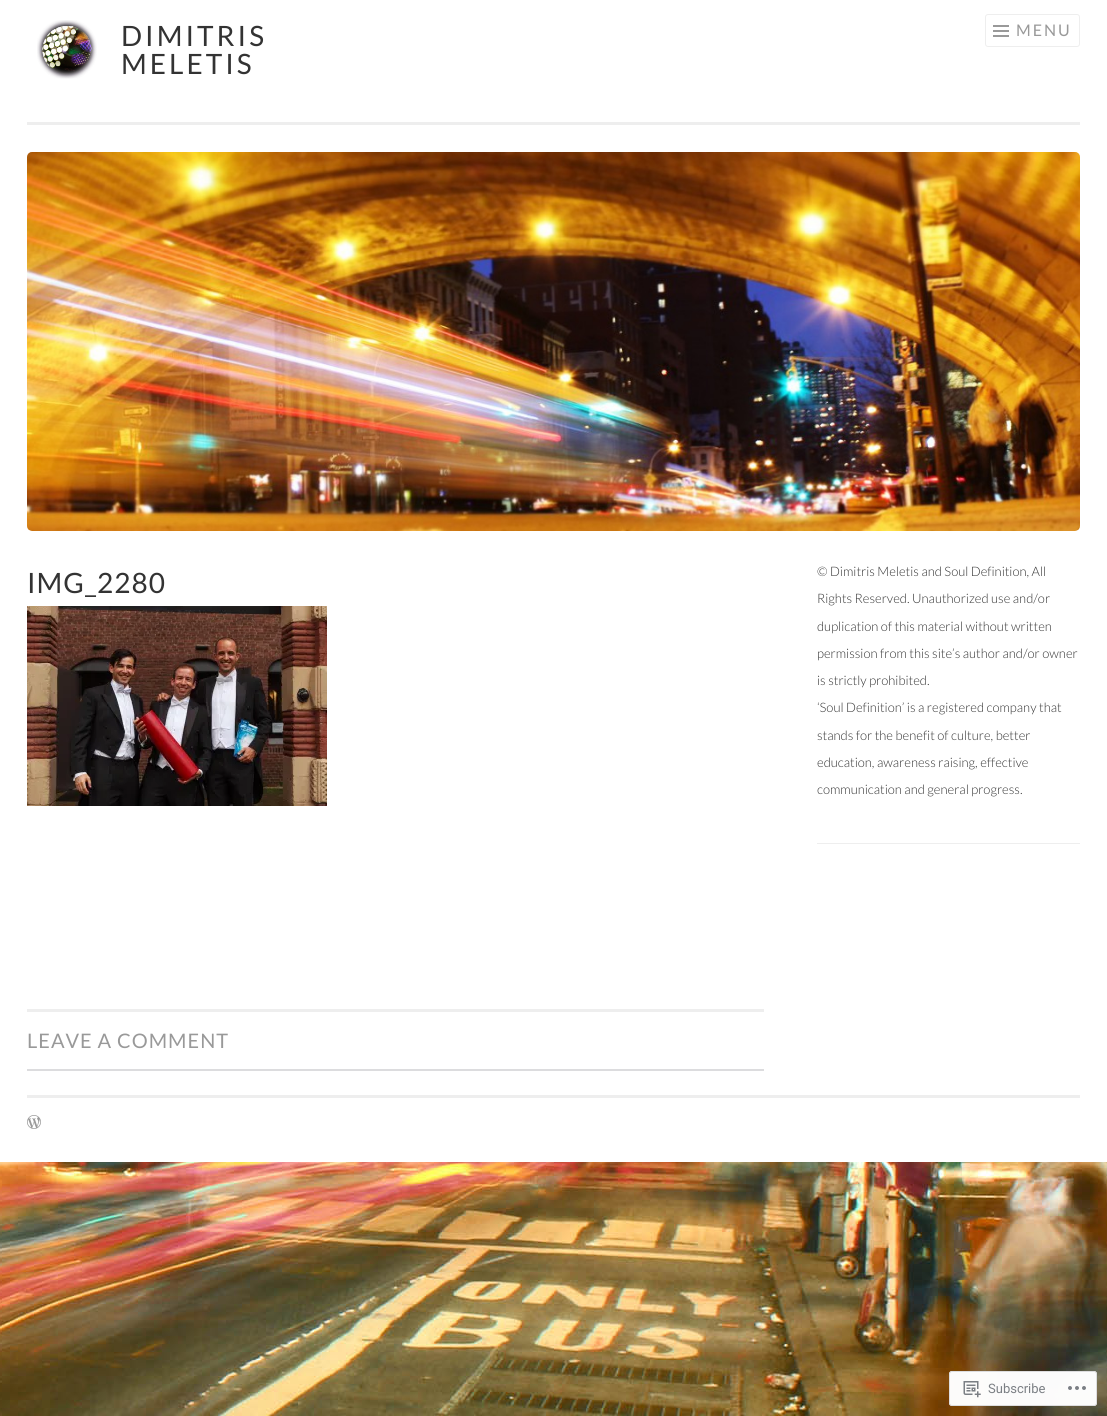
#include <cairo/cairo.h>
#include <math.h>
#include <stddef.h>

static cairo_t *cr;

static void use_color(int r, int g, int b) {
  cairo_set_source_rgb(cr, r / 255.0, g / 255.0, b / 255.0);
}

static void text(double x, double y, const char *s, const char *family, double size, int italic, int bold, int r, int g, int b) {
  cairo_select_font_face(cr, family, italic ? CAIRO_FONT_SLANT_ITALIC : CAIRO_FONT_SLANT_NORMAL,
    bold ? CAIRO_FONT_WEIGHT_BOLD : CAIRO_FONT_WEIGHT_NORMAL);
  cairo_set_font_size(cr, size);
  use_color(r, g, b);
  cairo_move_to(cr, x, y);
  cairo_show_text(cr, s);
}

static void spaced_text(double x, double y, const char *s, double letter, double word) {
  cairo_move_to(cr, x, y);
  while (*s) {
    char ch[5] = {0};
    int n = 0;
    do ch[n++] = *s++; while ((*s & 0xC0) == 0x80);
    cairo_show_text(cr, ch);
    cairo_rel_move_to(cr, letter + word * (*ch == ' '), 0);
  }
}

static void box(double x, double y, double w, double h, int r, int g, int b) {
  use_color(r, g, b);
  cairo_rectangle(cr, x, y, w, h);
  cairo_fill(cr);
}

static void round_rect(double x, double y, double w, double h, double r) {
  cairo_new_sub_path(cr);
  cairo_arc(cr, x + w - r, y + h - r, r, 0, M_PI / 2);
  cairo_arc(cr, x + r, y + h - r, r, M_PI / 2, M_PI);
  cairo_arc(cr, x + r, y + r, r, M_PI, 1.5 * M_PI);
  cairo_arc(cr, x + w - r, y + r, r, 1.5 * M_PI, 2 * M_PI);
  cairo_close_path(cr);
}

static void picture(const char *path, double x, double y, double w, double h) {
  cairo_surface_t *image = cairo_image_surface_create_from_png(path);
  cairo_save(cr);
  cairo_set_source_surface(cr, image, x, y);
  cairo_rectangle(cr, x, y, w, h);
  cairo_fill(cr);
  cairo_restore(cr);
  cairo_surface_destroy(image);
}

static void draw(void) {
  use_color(255, 255, 255);
  cairo_paint(cr);
  picture("img_01.png", 0, 1162, 1107, 254);
  box(27, 122, 1053, 3, 238, 238, 238);
  picture("img_02.png", 37, 20, 60, 59);
  round_rect(985.5, 14.5, 94, 32, 2.5);
  cairo_set_line_width(cr, 1);
  cairo_stroke(cr);
  picture("img_03.png", 993, 25, 16, 12);
  picture("img_04.png", 27, 152, 1053, 379);
  picture("img_05.png", 27, 606, 300, 200);
  box(27, 1009, 737, 3, 238, 238, 238);
  box(27, 1069, 737, 2, 220, 220, 222);
  box(817, 843, 263, 1, 238, 238, 238);
  box(27, 1095, 1053, 3, 238, 238, 238);
  picture("img_06.png", 27, 1115, 14, 14);
  cairo_set_source_rgba(cr, 1, 1, 1, 0.98);
  round_rect(949, 1371, 148, 35, 3);
  cairo_fill(cr);
  round_rect(949.5, 1371.5, 147, 34, 2.5);
  cairo_set_source_rgba(cr, 0.863, 0.863, 0.871, 0.98);
  cairo_stroke(cr);
  picture("img_07.png", 963, 1381, 18, 17);
  picture("img_08.png", 1068, 1386, 18, 4);
  cairo_select_font_face(cr, "Lato", CAIRO_FONT_SLANT_NORMAL, CAIRO_FONT_WEIGHT_NORMAL);
  cairo_set_font_size(cr, 28);
  use_color(51, 51, 51);
  spaced_text(121, 46, "DIMITRIS", 3, 0);
  spaced_text(121, 74, "MELETIS", 3, 0);
  cairo_set_font_size(cr, 16);
  use_color(153, 153, 153);
  spaced_text(1016, 36, "MENU", 2, 0);
  cairo_set_font_size(cr, 28);
  use_color(51, 51, 51);
  spaced_text(27, 593, "IMG_2280", 1, 0);
  cairo_set_font_size(cr, 20);
  use_color(153, 153, 153);
  spaced_text(27, 1048, "LEAVE A COMMENT", 1, 0);
  text(817, 576, "© Dimitris Meletis and Soul Definition, All", "Lato Light", 13, 0, 0, 51, 51, 51);
  text(817, 603, "Rights Reserved. Unauthorized use and/or", "Lato Light", 13, 0, 0, 51, 51, 51);
  text(817, 631, "duplication of this material without written", "Lato Light", 13, 0, 0, 51, 51, 51);
  text(817, 658, "permission from this site’s author and/or owner", "Lato Light", 13, 0, 0, 51, 51, 51);
  text(817, 685, "is strictly prohibited.", "Lato Light", 13, 0, 0, 51, 51, 51);
  text(817, 712, "‘Soul Definition’ is a registered company that", "Lato Light", 13, 0, 0, 51, 51, 51);
  text(817, 740, "stands for the benefit of culture, better", "Lato Light", 13, 0, 0, 51, 51, 51);
  text(817, 767, "education, awareness raising, effective", "Lato Light", 13, 0, 0, 51, 51, 51);
  text(817, 794, "communication and general progress.", "Lato Light", 13, 0, 0, 51, 51, 51);
  text(988, 1393, "Subscribe", "Roboto", 13, 0, 0, 123, 127, 132);
}

int main(void) {
  cairo_surface_t *surface = cairo_image_surface_create(CAIRO_FORMAT_RGB24, 1107, 1416);
  cr = cairo_create(surface);
  cairo_font_options_t *options = cairo_font_options_create();
  cairo_font_options_set_hint_metrics(options, CAIRO_HINT_METRICS_OFF);
  cairo_font_options_set_hint_style(options, CAIRO_HINT_STYLE_NONE);
  cairo_set_font_options(cr, options);
  cairo_set_miter_limit(cr, 4);
  draw();
  cairo_surface_write_to_png(surface, "out.png");
  cairo_font_options_destroy(options);
  cairo_destroy(cr);
  cairo_surface_destroy(surface);
  return 0;
}
